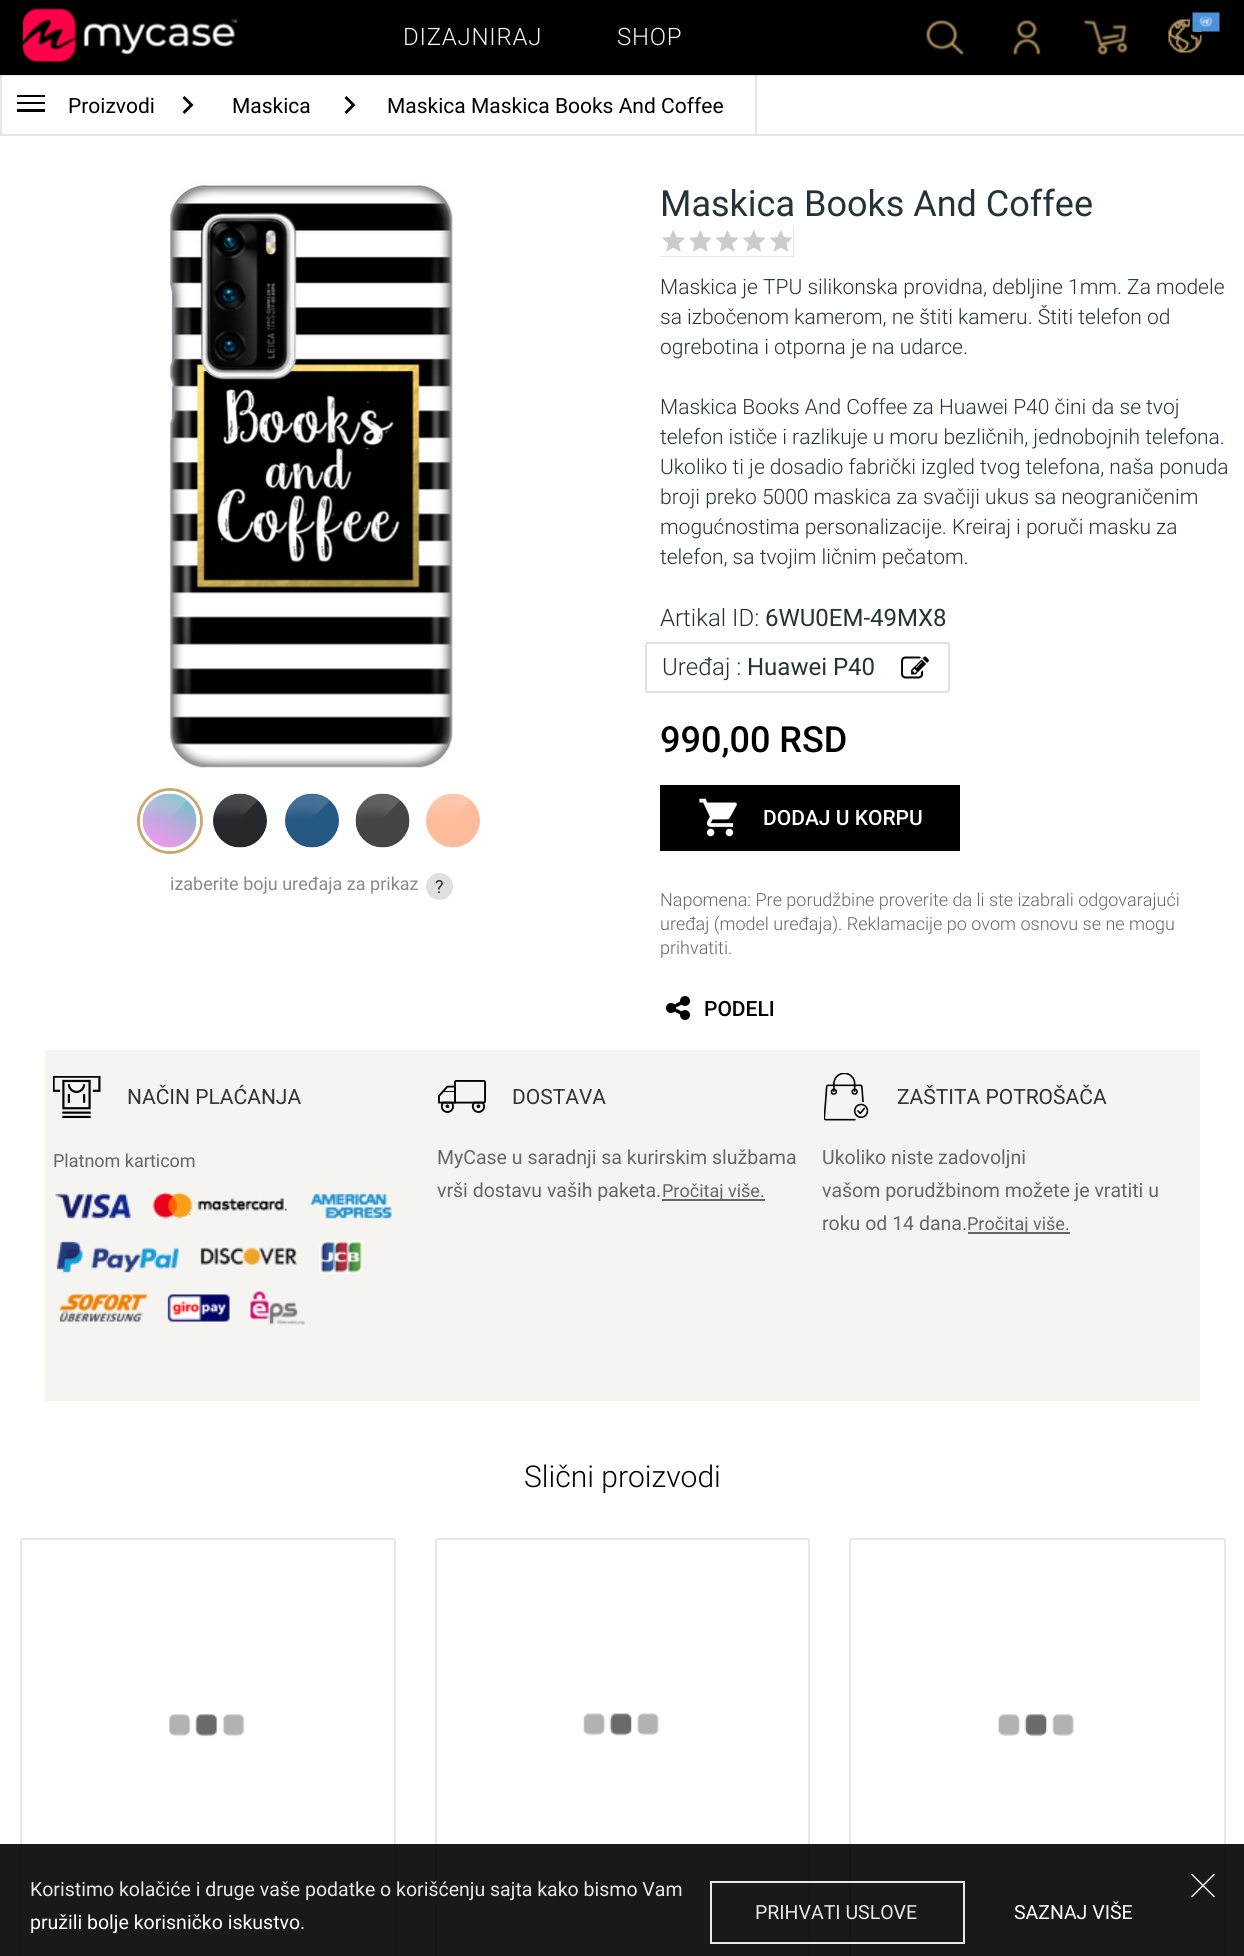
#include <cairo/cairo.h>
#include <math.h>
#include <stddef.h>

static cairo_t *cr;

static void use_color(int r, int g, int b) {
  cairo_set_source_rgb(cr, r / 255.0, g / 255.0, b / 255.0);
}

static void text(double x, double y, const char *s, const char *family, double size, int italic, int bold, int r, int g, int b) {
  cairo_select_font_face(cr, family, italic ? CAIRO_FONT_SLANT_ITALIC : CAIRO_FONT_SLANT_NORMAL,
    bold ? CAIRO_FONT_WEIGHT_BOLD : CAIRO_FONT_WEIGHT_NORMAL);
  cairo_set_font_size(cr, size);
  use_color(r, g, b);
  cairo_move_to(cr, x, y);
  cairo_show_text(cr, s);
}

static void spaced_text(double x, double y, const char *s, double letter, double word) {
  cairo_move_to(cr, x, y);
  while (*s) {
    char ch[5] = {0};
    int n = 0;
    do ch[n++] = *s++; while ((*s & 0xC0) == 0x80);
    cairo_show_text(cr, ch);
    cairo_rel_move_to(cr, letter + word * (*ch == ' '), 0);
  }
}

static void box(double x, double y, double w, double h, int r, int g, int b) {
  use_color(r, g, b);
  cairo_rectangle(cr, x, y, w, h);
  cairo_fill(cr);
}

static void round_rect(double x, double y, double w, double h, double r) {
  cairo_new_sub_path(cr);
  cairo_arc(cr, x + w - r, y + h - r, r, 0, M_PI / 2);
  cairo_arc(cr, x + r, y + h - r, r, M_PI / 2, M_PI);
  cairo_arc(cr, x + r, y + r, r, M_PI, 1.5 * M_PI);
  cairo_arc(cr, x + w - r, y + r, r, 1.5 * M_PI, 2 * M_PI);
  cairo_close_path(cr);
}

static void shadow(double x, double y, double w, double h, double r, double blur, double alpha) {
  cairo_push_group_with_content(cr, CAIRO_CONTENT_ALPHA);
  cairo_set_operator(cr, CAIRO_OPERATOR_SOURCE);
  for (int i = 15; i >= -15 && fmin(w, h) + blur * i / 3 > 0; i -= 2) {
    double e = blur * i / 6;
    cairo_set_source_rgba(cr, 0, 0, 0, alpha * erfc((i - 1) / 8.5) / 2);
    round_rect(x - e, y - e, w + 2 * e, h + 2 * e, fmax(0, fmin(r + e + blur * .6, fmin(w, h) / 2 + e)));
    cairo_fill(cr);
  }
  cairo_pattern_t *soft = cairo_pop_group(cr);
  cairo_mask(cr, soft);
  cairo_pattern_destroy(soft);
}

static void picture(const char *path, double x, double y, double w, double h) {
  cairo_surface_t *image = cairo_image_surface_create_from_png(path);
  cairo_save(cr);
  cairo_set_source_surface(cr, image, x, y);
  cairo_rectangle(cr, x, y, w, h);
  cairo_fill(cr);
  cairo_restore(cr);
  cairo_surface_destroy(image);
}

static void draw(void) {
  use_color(255, 255, 255);
  cairo_paint(cr);
  box(0, 0, 1244, 75, 0, 0, 0);
  box(0, 75, 2, 59, 231, 231, 231);
  box(755, 75, 2, 59, 231, 231, 231);
  cairo_save(cr);
  cairo_rectangle(cr, 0, 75, 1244, 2);
  cairo_clip(cr);
  use_color(0, 0, 0);
  shadow(0, 0, 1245, 75, 0, 1.5, 0.2);
  cairo_restore(cr);
  picture("img_01.png", 23, 8, 215, 54);
  picture("img_02.png", 926, 20, 38, 35);
  picture("img_03.png", 1013, 20, 28, 35);
  picture("img_04.png", 1083, 20, 45, 35);
  picture("img_05.png", 1168, 19, 34, 34);
  round_rect(1191.5, 10.5, 30, 23, 1.5);
  use_color(0, 0, 0);
  cairo_set_line_width(cr, 3);
  cairo_stroke(cr);
  picture("img_06.png", 1192, 12, 28, 20);
  box(0, 134, 1244, 2, 231, 231, 231);
  box(17, 95, 28, 2, 0, 0, 0);
  box(17, 109, 28, 3, 0, 0, 0);
  box(17, 102, 28, 2, 0, 0, 0);
  cairo_new_path(cr);
  cairo_move_to(cr, 184.5, 96);
  cairo_line_to(cr, 182.5, 98);
  cairo_line_to(cr, 189.5, 105);
  cairo_line_to(cr, 182.5, 112);
  cairo_line_to(cr, 184.5, 114);
  cairo_line_to(cr, 193.5, 105);
  cairo_close_path(cr);
  cairo_fill(cr);
  cairo_new_path(cr);
  cairo_move_to(cr, 346.5, 96);
  cairo_line_to(cr, 344.5, 98);
  cairo_line_to(cr, 351.5, 105);
  cairo_line_to(cr, 344.5, 112);
  cairo_line_to(cr, 346.5, 114);
  cairo_line_to(cr, 355.5, 105);
  cairo_close_path(cr);
  cairo_fill(cr);
  picture("img_07.png", 168, 182, 286, 586);
  cairo_arc(cr, 170, 821, 31.5, 0, 2 * M_PI);
  use_color(203, 169, 111);
  cairo_stroke(cr);
  cairo_arc(cr, 170, 821, 28.5, 0, 2 * M_PI);
  use_color(255, 255, 255);
  cairo_stroke(cr);
  picture("img_08.png", 142, 793, 55, 55);
  picture("img_09.png", 213, 793, 54, 55);
  picture("img_10.png", 285, 793, 54, 55);
  picture("img_11.png", 355, 793, 55, 55);
  picture("img_12.png", 426, 793, 54, 55);
  use_color(224, 224, 224);
  cairo_arc(cr, 439.5, 886.5, 13.5, 0, 2 * M_PI);
  cairo_fill(cr);
  box(660, 228, 134, 29, 204, 204, 204);
  picture("img_13.png", 660, 228, 134, 29);
  round_rect(646, 643, 303, 49, 2);
  use_color(224, 224, 224);
  cairo_set_line_width(cr, 2);
  cairo_stroke(cr);
  picture("img_14.png", 901, 656, 28, 23);
  box(660, 785, 300, 66, 0, 0, 0);
  picture("img_15.png", 699, 798, 38, 39);
  picture("img_16.png", 666, 996, 24, 24);
  box(45, 1050, 1155, 351, 245, 244, 240);
  picture("img_17.png", 53, 1076, 48, 42);
  picture("img_18.png", 55, 1193, 76, 26);
  picture("img_19.png", 152, 1192, 135, 27);
  picture("img_20.png", 310, 1193, 82, 26);
  picture("img_21.png", 56, 1241, 123, 32);
  picture("img_22.png", 200, 1247, 98, 18);
  picture("img_23.png", 319, 1240, 44, 34);
  picture("img_24.png", 59, 1294, 89, 28);
  picture("img_25.png", 167, 1294, 63, 28);
  picture("img_26.png", 250, 1291, 55, 34);
  picture("img_27.png", 438, 1080, 48, 33);
  box(662, 1199, 103, 2, 102, 102, 102);
  picture("img_28.png", 824, 1073, 45, 48);
  box(968, 1232, 102, 2, 102, 102, 102);
  round_rect(21, 1539, 374, 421, 2);
  use_color(231, 231, 231);
  cairo_stroke(cr);
  picture("img_29.png", 169, 1714, 76, 23);
  round_rect(436, 1539, 373, 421, 2);
  cairo_stroke(cr);
  picture("img_30.png", 583, 1713, 76, 23);
  round_rect(850, 1539, 375, 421, 2);
  cairo_stroke(cr);
  picture("img_31.png", 998, 1714, 76, 23);
  cairo_set_source_rgba(cr, 0, 0, 0, 0.9);
  cairo_rectangle(cr, 0, 1844, 1244, 112);
  cairo_fill(cr);
  cairo_rectangle(cr, 711, 1882, 253, 61);
  use_color(232, 232, 232);
  cairo_stroke(cr);
  picture("img_32.png", 1191, 1874, 24, 24);
  cairo_select_font_face(cr, "Roboto Light", CAIRO_FONT_SLANT_NORMAL, CAIRO_FONT_WEIGHT_NORMAL);
  cairo_set_font_size(cr, 24);
  use_color(245, 244, 240);
  spaced_text(403, 45, "DIZAJNIRAJ", 0.75, 0);
  spaced_text(617, 45, "SHOP", 0.75, 0);
  text(68, 113, "Proizvodi", "Roboto", 21, 0, 0, 0, 0, 0);
  text(232, 113, "Maskica", "Roboto", 21, 0, 0, 0, 0, 0);
  text(387, 113, "Maskica Maskica Books And Coffee", "Roboto", 21, 0, 0, 0, 0, 0);
  text(170, 890, "izaberite boju uređaja za prikaz", "Roboto", 18, 0, 0, 138, 138, 138);
  text(435, 893, "?", "Roboto", 18, 0, 0, 37, 51, 56);
  text(660, 216, "Maskica Books And Coffee", "Roboto", 36, 0, 0, 37, 51, 56);
  text(660, 294, "Maskica je TPU silikonska providna, debljine 1mm. Za modele", "Roboto Light", 21, 0, 0, 37, 51, 56);
  text(660, 324, "sa izbočenom kamerom, ne štiti kameru. Štiti telefon od", "Roboto Light", 21, 0, 0, 37, 51, 56);
  text(660, 354, "ogrebotina i otporna je na udarce.", "Roboto Light", 21, 0, 0, 37, 51, 56);
  text(660, 414, "Maskica Books And Coffee za Huawei P40 čini da se tvoj", "Roboto Light", 21, 0, 0, 37, 51, 56);
  text(660, 444, "telefon ističe i razlikuje u moru bezličnih, jednobojnih telefona.", "Roboto Light", 21, 0, 0, 37, 51, 56);
  text(660, 474, "Ukoliko ti je dosadio fabrički izgled tvog telefona, naša ponuda", "Roboto Light", 21, 0, 0, 37, 51, 56);
  text(660, 504, "broji preko 5000 maskica za svačiji ukus sa neograničenim", "Roboto Light", 21, 0, 0, 37, 51, 56);
  text(660, 534, "mogućnostima personalizacije. Kreiraj i poruči masku za", "Roboto Light", 21, 0, 0, 37, 51, 56);
  text(660, 564, "telefon, sa tvojim ličnim pečatom.", "Roboto Light", 21, 0, 0, 37, 51, 56);
  text(660, 626, "Artikal ID:", "Roboto Light", 24, 0, 0, 37, 51, 56);
  text(765, 626, "6WU0EM-49MX8", "Roboto", 24, 0, 0, 37, 51, 56);
  text(662, 675, "Uređaj :", "Roboto Light", 24, 0, 0, 37, 51, 56);
  text(747, 675, "Huawei P40", "Roboto", 24, 0, 0, 37, 51, 56);
  text(660, 752, "990,00 RSD", "Roboto Medium", 36, 0, 0, 0, 0, 0);
  text(763, 825, "DODAJ U KORPU", "Roboto Medium", 21, 0, 0, 255, 255, 255);
  text(660, 906, "Napomena: Pre porudžbine proverite da li ste izabrali odgovarajući", "Roboto Light", 18, 0, 0, 102, 102, 102);
  text(660, 930, "uređaj (model uređaja). Reklamacije po ovom osnovu se ne mogu", "Roboto Light", 18, 0, 0, 102, 102, 102);
  text(660, 954, "prihvatiti.", "Roboto Light", 18, 0, 0, 102, 102, 102);
  text(704, 1016, "PODELI", "Roboto Medium", 21, 0, 0, 0, 0, 0);
  text(127, 1104, "NAČIN PLAĆANJA", "Roboto", 21, 0, 0, 51, 51, 51);
  text(53, 1167, "Platnom karticom", "Roboto", 18, 0, 0, 102, 102, 102);
  text(512, 1104, "DOSTAVA", "Roboto", 21, 0, 0, 51, 51, 51);
  text(437, 1164, "MyCase u saradnji sa kurirskim službama", "Roboto", 19.5, 0, 0, 102, 102, 102);
  text(437, 1197, "vrši dostavu vaših paketa.", "Roboto", 19.5, 0, 0, 102, 102, 102);
  text(662, 1197, "Pročitaj više.", "Roboto", 18, 0, 0, 102, 102, 102);
  text(897, 1104, "ZAŠTITA POTROŠAČA", "Roboto", 21, 0, 0, 51, 51, 51);
  text(822, 1164, "Ukoliko niste zadovoljni", "Roboto", 19.5, 0, 0, 102, 102, 102);
  text(822, 1197, "vašom porudžbinom možete je vratiti u", "Roboto", 19.5, 0, 0, 102, 102, 102);
  text(822, 1230, "roku od 14 dana.", "Roboto", 19.5, 0, 0, 102, 102, 102);
  text(967, 1230, "Pročitaj više.", "Roboto", 18, 0, 0, 102, 102, 102);
  text(524, 1487, "Slični proizvodi", "Roboto Light", 30, 0, 0, 0, 0, 0);
  text(30, 1896, "Koristimo kolačiće i druge vaše podatke o korišćenju sajta kako bismo Vam", "Roboto", 19.5, 0, 0, 232, 232, 232);
  text(30, 1929, "pružili bolje korisničko iskustvo.", "Roboto", 19.5, 0, 0, 255, 255, 255);
  text(755, 1919, "PRIHVATI USLOVE", "Roboto", 19.5, 0, 0, 232, 232, 232);
  text(1014, 1919, "SAZNAJ VIŠE", "Roboto", 19.5, 0, 0, 255, 255, 255);
}

int main(void) {
  cairo_surface_t *surface = cairo_image_surface_create(CAIRO_FORMAT_RGB24, 1244, 1956);
  cr = cairo_create(surface);
  cairo_font_options_t *options = cairo_font_options_create();
  cairo_font_options_set_hint_metrics(options, CAIRO_HINT_METRICS_OFF);
  cairo_font_options_set_hint_style(options, CAIRO_HINT_STYLE_NONE);
  cairo_set_font_options(cr, options);
  cairo_set_miter_limit(cr, 4);
  draw();
  cairo_surface_write_to_png(surface, "out.png");
  cairo_font_options_destroy(options);
  cairo_destroy(cr);
  cairo_surface_destroy(surface);
  return 0;
}
